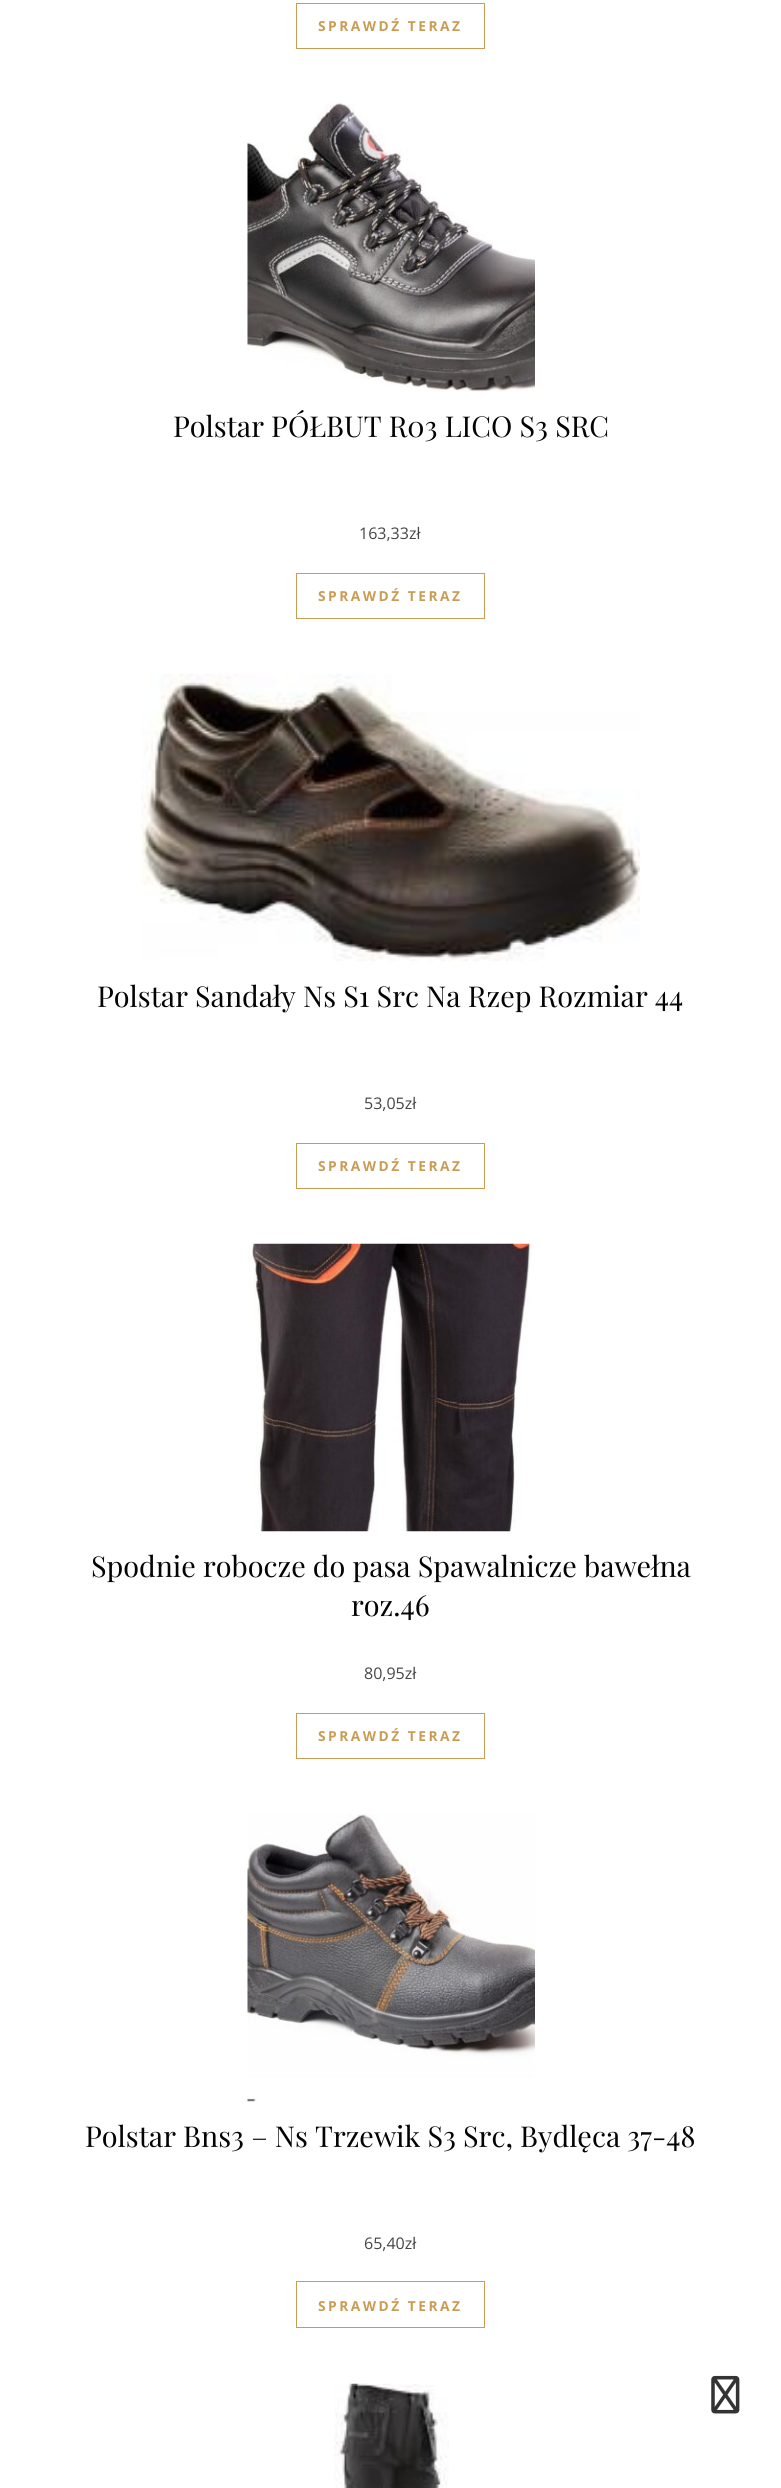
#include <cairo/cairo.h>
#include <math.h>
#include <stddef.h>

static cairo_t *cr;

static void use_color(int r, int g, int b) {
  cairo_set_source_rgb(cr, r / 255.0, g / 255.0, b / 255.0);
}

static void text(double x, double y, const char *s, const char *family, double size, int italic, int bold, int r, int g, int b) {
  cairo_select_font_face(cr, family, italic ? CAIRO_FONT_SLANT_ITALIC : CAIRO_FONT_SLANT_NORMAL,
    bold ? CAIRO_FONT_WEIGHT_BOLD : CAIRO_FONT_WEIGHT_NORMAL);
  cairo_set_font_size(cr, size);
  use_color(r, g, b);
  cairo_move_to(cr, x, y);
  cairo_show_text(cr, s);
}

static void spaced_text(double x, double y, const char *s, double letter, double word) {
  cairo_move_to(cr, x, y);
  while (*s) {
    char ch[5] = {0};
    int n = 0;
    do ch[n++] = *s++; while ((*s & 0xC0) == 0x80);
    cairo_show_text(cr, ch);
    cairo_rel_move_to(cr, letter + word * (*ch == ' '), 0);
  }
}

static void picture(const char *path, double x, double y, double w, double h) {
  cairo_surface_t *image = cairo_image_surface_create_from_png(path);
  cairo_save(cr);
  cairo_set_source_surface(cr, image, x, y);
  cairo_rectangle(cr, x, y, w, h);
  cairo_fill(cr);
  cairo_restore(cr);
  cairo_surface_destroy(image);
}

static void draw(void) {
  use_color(255, 255, 255);
  cairo_paint(cr);
  cairo_rectangle(cr, 296.5, 3.5, 188, 45);
  use_color(202, 155, 82);
  cairo_set_line_width(cr, 1);
  cairo_stroke(cr);
  picture("img_01.png", 247, 103, 288, 289);
  cairo_rectangle(cr, 296.5, 573.5, 188, 45);
  cairo_stroke(cr);
  picture("img_02.png", 141, 673, 499, 289);
  cairo_rectangle(cr, 296.5, 1143.5, 188, 45);
  cairo_stroke(cr);
  picture("img_03.png", 247, 1243, 287, 289);
  cairo_rectangle(cr, 296.5, 1713.5, 188, 45);
  cairo_stroke(cr);
  picture("img_04.png", 247, 1814, 288, 288);
  cairo_rectangle(cr, 296.5, 2281.5, 188, 46);
  cairo_stroke(cr);
  picture("img_05.png", 334, 2383, 115, 105);
  picture("img_06.png", 711, 2375, 29, 39);
  cairo_select_font_face(cr, "Open Sans", CAIRO_FONT_SLANT_NORMAL, CAIRO_FONT_WEIGHT_BOLD);
  cairo_set_font_size(cr, 13.75);
  spaced_text(318, 31, "SPRAWDŹ TERAZ", 2.5, 0);
  text(173, 437, "Polstar PÓŁBUT R03 LICO S3 SRC", "Playfair Display", 28.75, 0, 0, 3, 3, 3);
  text(359, 539, "163,33zł", "Open Sans", 16, 0, 0, 70, 70, 70);
  cairo_select_font_face(cr, "Open Sans", CAIRO_FONT_SLANT_NORMAL, CAIRO_FONT_WEIGHT_BOLD);
  cairo_set_font_size(cr, 13.75);
  use_color(202, 155, 82);
  spaced_text(318, 601, "SPRAWDŹ TERAZ", 2.5, 0);
  text(97, 1007, "Polstar Sandały Ns S1 Src Na Rzep Rozmiar 44", "Playfair Display", 28.75, 0, 0, 3, 3, 3);
  text(364, 1109, "53,05zł", "Open Sans", 16, 0, 0, 70, 70, 70);
  cairo_select_font_face(cr, "Open Sans", CAIRO_FONT_SLANT_NORMAL, CAIRO_FONT_WEIGHT_BOLD);
  cairo_set_font_size(cr, 13.75);
  use_color(202, 155, 82);
  spaced_text(318, 1171, "SPRAWDŹ TERAZ", 2.5, 0);
  text(91, 1577, "Spodnie robocze do pasa Spawalnicze bawełna", "Playfair Display", 28.75, 0, 0, 3, 3, 3);
  text(351, 1616, "roz.46", "Playfair Display", 28.75, 0, 0, 3, 3, 3);
  text(364, 1679, "80,95zł", "Open Sans", 16, 0, 0, 70, 70, 70);
  cairo_select_font_face(cr, "Open Sans", CAIRO_FONT_SLANT_NORMAL, CAIRO_FONT_WEIGHT_BOLD);
  cairo_set_font_size(cr, 13.75);
  use_color(202, 155, 82);
  spaced_text(318, 1741, "SPRAWDŹ TERAZ", 2.5, 0);
  text(85, 2147, "Polstar Bns3 – Ns Trzewik S3 Src, Bydlęca 37-48", "Playfair Display", 28.75, 0, 0, 3, 3, 3);
  text(364, 2249, "65,40zł", "Open Sans", 16, 0, 0, 70, 70, 70);
  cairo_select_font_face(cr, "Open Sans", CAIRO_FONT_SLANT_NORMAL, CAIRO_FONT_WEIGHT_BOLD);
  cairo_set_font_size(cr, 13.75);
  use_color(202, 155, 82);
  spaced_text(318, 2311, "SPRAWDŹ TERAZ", 2.5, 0);
}

int main(void) {
  cairo_surface_t *surface = cairo_image_surface_create(CAIRO_FORMAT_RGB24, 781, 2488);
  cr = cairo_create(surface);
  cairo_font_options_t *options = cairo_font_options_create();
  cairo_font_options_set_hint_metrics(options, CAIRO_HINT_METRICS_OFF);
  cairo_font_options_set_hint_style(options, CAIRO_HINT_STYLE_NONE);
  cairo_set_font_options(cr, options);
  cairo_set_miter_limit(cr, 4);
  draw();
  cairo_surface_write_to_png(surface, "out.png");
  cairo_font_options_destroy(options);
  cairo_destroy(cr);
  cairo_surface_destroy(surface);
  return 0;
}
